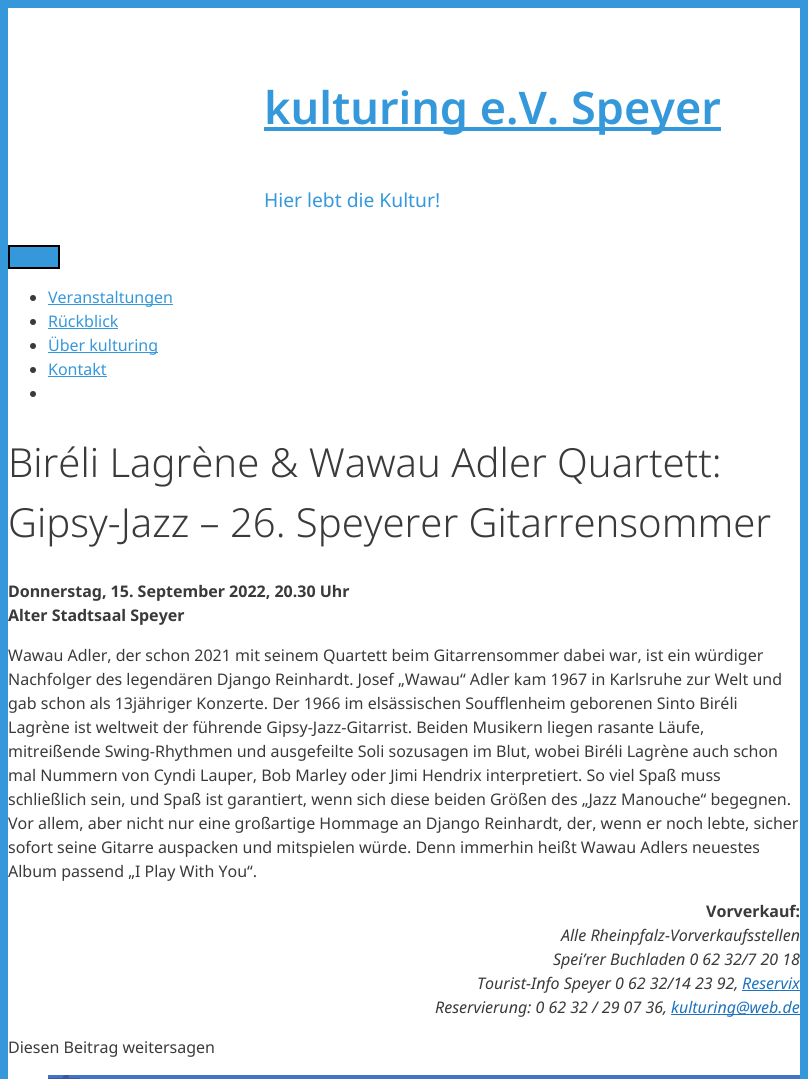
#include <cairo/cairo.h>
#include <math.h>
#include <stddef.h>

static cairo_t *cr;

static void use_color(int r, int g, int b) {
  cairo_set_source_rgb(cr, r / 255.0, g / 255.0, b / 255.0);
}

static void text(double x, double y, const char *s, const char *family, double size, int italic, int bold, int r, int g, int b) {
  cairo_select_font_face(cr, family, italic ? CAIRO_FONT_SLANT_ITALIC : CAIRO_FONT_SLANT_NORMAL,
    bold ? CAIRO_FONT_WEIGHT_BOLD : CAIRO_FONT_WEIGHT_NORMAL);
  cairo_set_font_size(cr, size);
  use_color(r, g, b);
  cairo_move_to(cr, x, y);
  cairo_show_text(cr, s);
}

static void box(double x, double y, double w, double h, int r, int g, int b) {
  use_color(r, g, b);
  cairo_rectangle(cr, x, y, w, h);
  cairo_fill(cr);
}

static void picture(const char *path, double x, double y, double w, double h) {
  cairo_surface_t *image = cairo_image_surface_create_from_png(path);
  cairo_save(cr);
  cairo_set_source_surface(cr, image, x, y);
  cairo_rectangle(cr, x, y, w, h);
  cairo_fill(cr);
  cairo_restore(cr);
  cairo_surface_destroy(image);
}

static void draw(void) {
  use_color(52, 152, 219);
  cairo_paint(cr);
  box(8, 8, 792, 1071, 255, 255, 255);
  box(264, 127, 457, 4, 52, 152, 219);
  cairo_rectangle(cr, 9, 246, 50, 22);
  cairo_fill_preserve(cr);
  use_color(0, 0, 0);
  cairo_stroke(cr);
  use_color(58, 58, 58);
  cairo_arc(cr, 33, 298, 3, 0, 2 * M_PI);
  cairo_fill(cr);
  box(48, 304, 125, 1, 52, 152, 219);
  use_color(58, 58, 58);
  cairo_arc(cr, 33, 322, 3, 0, 2 * M_PI);
  cairo_fill(cr);
  box(48, 328, 70, 1, 52, 152, 219);
  use_color(58, 58, 58);
  cairo_arc(cr, 33, 346, 3, 0, 2 * M_PI);
  cairo_fill(cr);
  box(48, 352, 110, 1, 52, 152, 219);
  use_color(58, 58, 58);
  cairo_arc(cr, 33, 370, 3, 0, 2 * M_PI);
  cairo_fill(cr);
  box(48, 376, 59, 1, 52, 152, 219);
  use_color(58, 58, 58);
  cairo_arc(cr, 33, 394, 3, 0, 2 * M_PI);
  cairo_fill(cr);
  box(742, 990, 58, 1, 30, 115, 190);
  box(671, 1014, 129, 1, 30, 115, 190);
  box(48, 1075, 752, 4, 66, 115, 200);
  picture("img_01.png", 62, 1075, 7, 3);
  box(48, 1078, 32, 1, 59, 89, 152);
  text(264, 124, "kulturing e.V. Speyer", "Noto Sans SemiBold", 45, 0, 0, 52, 152, 219);
  text(264, 207, "Hier lebt die Kultur!", "Noto Sans", 19.25, 0, 0, 52, 152, 219);
  text(48, 303, "Veranstaltungen", "Noto Sans", 16, 0, 0, 52, 152, 219);
  text(48, 327, "Rückblick", "Noto Sans", 16, 0, 0, 52, 152, 219);
  text(48, 351, "Über kulturing", "Noto Sans", 16, 0, 0, 52, 152, 219);
  text(48, 375, "Kontakt", "Noto Sans", 16, 0, 0, 52, 152, 219);
  text(8, 477, "Biréli Lagrène & Wawau Adler Quartett:", "Noto Sans Light", 40, 0, 0, 58, 58, 58);
  text(8, 537, "Gipsy-Jazz – 26. Speyerer Gitarrensommer", "Noto Sans Light", 40, 0, 0, 58, 58, 58);
  text(8, 597, "Donnerstag, 15. September 2022, 20.30 Uhr", "Noto Sans", 16, 0, 1, 58, 58, 58);
  text(8, 621, "Alter Stadtsaal Speyer", "Noto Sans", 16, 0, 1, 58, 58, 58);
  text(8, 661, "Wawau Adler, der schon 2021 mit seinem Quartett beim Gitarrensommer dabei war, ist ein würdiger", "Noto Sans", 16, 0, 0, 58, 58, 58);
  text(8, 685, "Nachfolger des legendären Django Reinhardt. Josef „Wawau“ Adler kam 1967 in Karlsruhe zur Welt und", "Noto Sans", 16, 0, 0, 58, 58, 58);
  text(8, 709, "gab schon als 13jähriger Konzerte. Der 1966 im elsässischen Soufflenheim geborenen Sinto Biréli", "Noto Sans", 16, 0, 0, 58, 58, 58);
  text(8, 733, "Lagrène ist weltweit der führende Gipsy-Jazz-Gitarrist. Beiden Musikern liegen rasante Läufe,", "Noto Sans", 16, 0, 0, 58, 58, 58);
  text(8, 757, "mitreißende Swing-Rhythmen und ausgefeilte Soli sozusagen im Blut, wobei Biréli Lagrène auch schon", "Noto Sans", 16, 0, 0, 58, 58, 58);
  text(8, 781, "mal Nummern von Cyndi Lauper, Bob Marley oder Jimi Hendrix interpretiert. So viel Spaß muss", "Noto Sans", 16, 0, 0, 58, 58, 58);
  text(8, 805, "schließlich sein, und Spaß ist garantiert, wenn sich diese beiden Größen des „Jazz Manouche“ begegnen.", "Noto Sans", 16, 0, 0, 58, 58, 58);
  text(8, 829, "Vor allem, aber nicht nur eine großartige Hommage an Django Reinhardt, der, wenn er noch lebte, sicher", "Noto Sans", 16, 0, 0, 58, 58, 58);
  text(8, 853, "sofort seine Gitarre auspacken und mitspielen würde. Denn immerhin heißt Wawau Adlers neuestes", "Noto Sans", 16, 0, 0, 58, 58, 58);
  text(8, 877, "Album passend „I Play With You“.", "Noto Sans", 16, 0, 0, 58, 58, 58);
  text(706, 917, "Vorverkauf:", "Noto Sans", 16, 0, 1, 58, 58, 58);
  text(561, 941, "Alle Rheinpfalz-Vorverkaufsstellen", "Noto Sans", 16, 1, 0, 58, 58, 58);
  text(553, 965, "Spei’rer Buchladen 0 62 32/7 20 18", "Noto Sans", 16, 1, 0, 58, 58, 58);
  text(477, 989, "Tourist-Info Speyer 0 62 32/14 23 92,", "Noto Sans", 16, 1, 0, 58, 58, 58);
  text(742, 989, "Reservix", "Noto Sans", 16, 1, 0, 30, 115, 190);
  text(435, 1013, "Reservierung: 0 62 32 / 29 07 36,", "Noto Sans", 16, 1, 0, 58, 58, 58);
  text(671, 1013, "kulturing@web.de", "Noto Sans", 16, 1, 0, 30, 115, 190);
  text(8, 1053, "Diesen Beitrag weitersagen", "Noto Sans", 16, 0, 0, 58, 58, 58);
}

int main(void) {
  cairo_surface_t *surface = cairo_image_surface_create(CAIRO_FORMAT_RGB24, 808, 1079);
  cr = cairo_create(surface);
  cairo_font_options_t *options = cairo_font_options_create();
  cairo_font_options_set_hint_metrics(options, CAIRO_HINT_METRICS_OFF);
  cairo_font_options_set_hint_style(options, CAIRO_HINT_STYLE_NONE);
  cairo_set_font_options(cr, options);
  cairo_set_miter_limit(cr, 4);
  draw();
  cairo_surface_write_to_png(surface, "out.png");
  cairo_font_options_destroy(options);
  cairo_destroy(cr);
  cairo_surface_destroy(surface);
  return 0;
}
